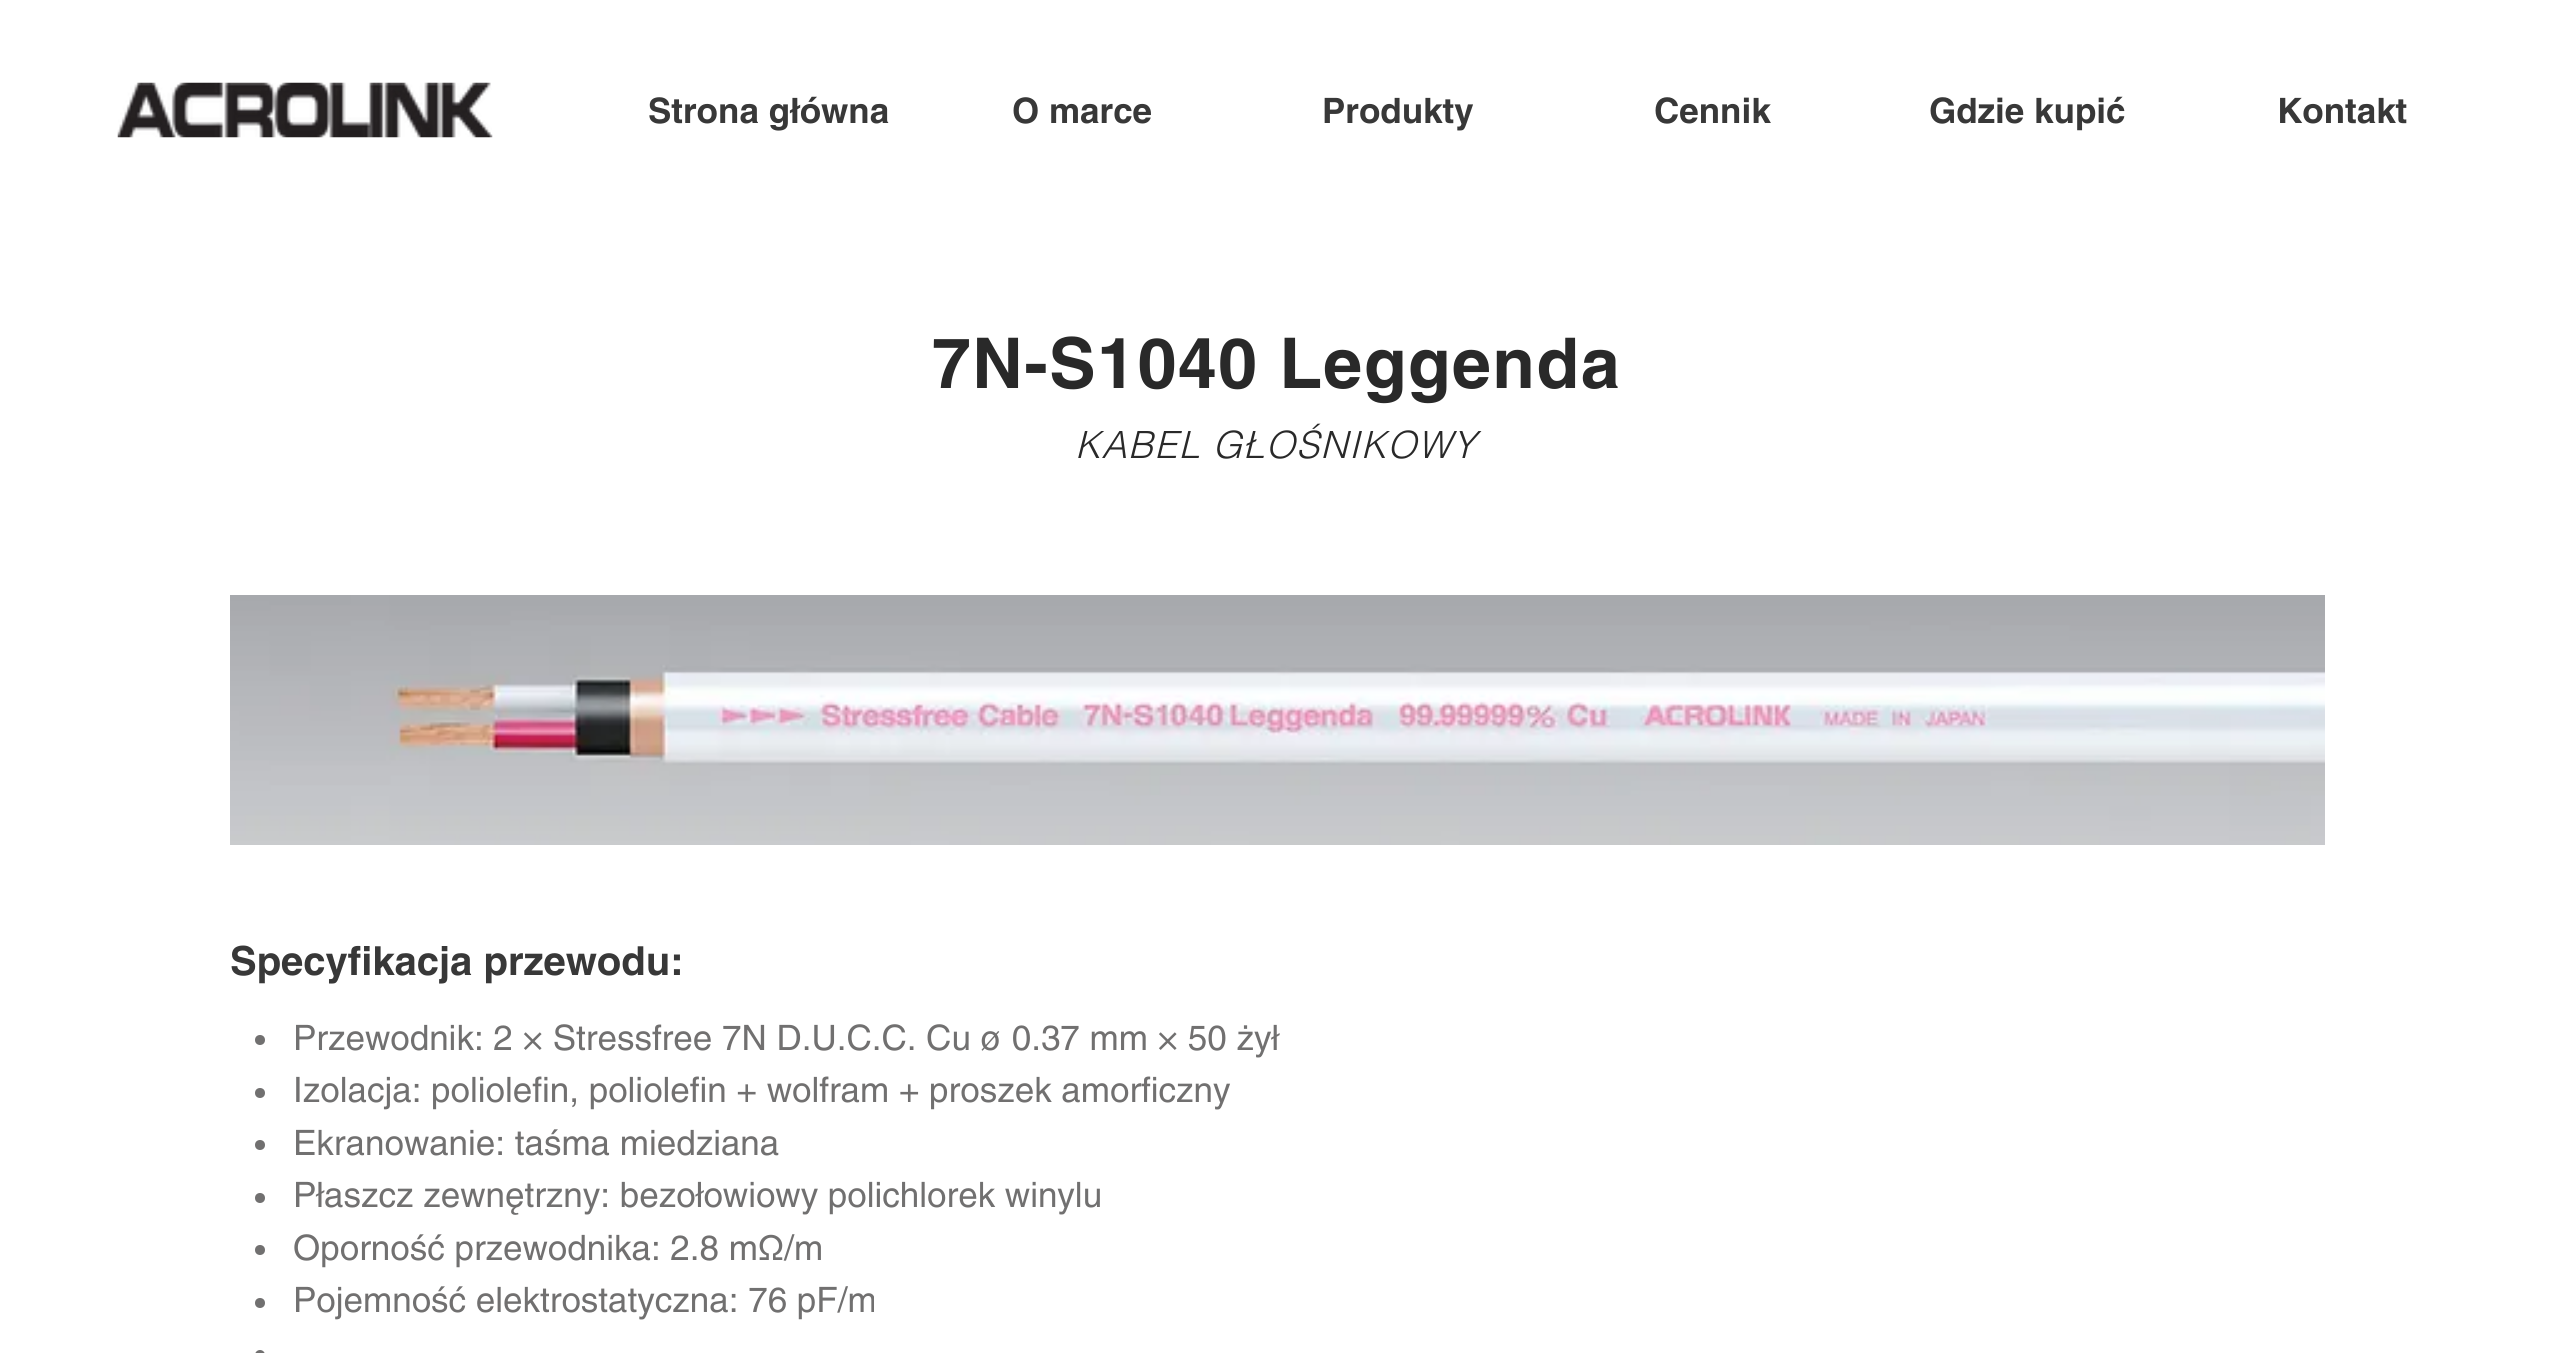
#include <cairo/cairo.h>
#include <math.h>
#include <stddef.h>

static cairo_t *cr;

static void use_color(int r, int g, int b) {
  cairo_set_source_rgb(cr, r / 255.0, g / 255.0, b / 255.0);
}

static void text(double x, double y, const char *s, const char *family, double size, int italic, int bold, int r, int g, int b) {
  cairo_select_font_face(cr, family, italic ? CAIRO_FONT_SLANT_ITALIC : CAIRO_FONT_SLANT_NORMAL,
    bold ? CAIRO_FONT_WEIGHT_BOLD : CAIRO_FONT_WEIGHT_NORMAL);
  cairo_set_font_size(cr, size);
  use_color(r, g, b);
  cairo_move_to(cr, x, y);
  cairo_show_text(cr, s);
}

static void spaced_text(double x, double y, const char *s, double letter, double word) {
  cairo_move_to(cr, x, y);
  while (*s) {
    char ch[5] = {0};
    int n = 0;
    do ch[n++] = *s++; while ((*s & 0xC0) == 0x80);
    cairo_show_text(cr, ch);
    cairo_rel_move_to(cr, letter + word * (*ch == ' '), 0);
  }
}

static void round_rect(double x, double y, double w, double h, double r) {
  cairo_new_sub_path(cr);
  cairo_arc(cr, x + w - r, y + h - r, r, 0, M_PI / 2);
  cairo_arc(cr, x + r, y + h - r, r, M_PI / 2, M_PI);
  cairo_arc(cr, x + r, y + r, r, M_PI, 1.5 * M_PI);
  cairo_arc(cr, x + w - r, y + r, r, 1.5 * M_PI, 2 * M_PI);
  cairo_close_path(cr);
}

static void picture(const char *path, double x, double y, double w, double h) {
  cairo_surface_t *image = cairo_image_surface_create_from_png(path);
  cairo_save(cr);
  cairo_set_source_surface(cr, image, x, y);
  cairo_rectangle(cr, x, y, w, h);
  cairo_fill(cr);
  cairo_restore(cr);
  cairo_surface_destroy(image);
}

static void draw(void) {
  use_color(255, 255, 255);
  cairo_paint(cr);
  picture("img_01.png", 117, 82, 376, 56);
  picture("img_02.png", 230, 595, 2095, 250);
  use_color(113, 112, 112);
  cairo_arc(cr, 260, 1040, 5, 0, 2 * M_PI);
  cairo_fill(cr);
  cairo_arc(cr, 260, 1093, 5, 0, 2 * M_PI);
  cairo_fill(cr);
  cairo_arc(cr, 260, 1145, 5, 0, 2 * M_PI);
  cairo_fill(cr);
  cairo_arc(cr, 260, 1198, 5, 0, 2 * M_PI);
  cairo_fill(cr);
  cairo_arc(cr, 260, 1250, 5, 0, 2 * M_PI);
  cairo_fill(cr);
  cairo_arc(cr, 260, 1303, 5, 0, 2 * M_PI);
  cairo_fill(cr);
  round_rect(255, 1350, 10, 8, 5);
  cairo_fill(cr);
  text(648, 123, "Strona główna", "helvetica", 35, 0, 1, 56, 56, 56);
  text(1012, 123, "O marce", "helvetica", 35, 0, 1, 56, 56, 56);
  text(1322, 123, "Produkty", "helvetica", 35, 0, 1, 56, 56, 56);
  text(1654, 123, "Cennik", "helvetica", 35, 0, 1, 56, 56, 56);
  text(1929, 123, "Gdzie kupić", "helvetica", 35, 0, 1, 56, 56, 56);
  text(2277, 123, "Kontakt", "helvetica", 35, 0, 1, 56, 56, 56);
  cairo_set_font_size(cr, 70);
  use_color(41, 41, 41);
  spaced_text(932, 388, "7N-S1040 Leggenda", 1.4, 0);
  cairo_select_font_face(cr, "helvetica Light", CAIRO_FONT_SLANT_ITALIC, CAIRO_FONT_WEIGHT_NORMAL);
  cairo_set_font_size(cr, 37.5);
  spaced_text(1075, 458, "KABEL GŁOŚNIKOWY", 1.4, 0);
  text(230, 975, "Specyfikacja przewodu:", "helvetica", 40, 0, 1, 56, 56, 56);
  text(293, 1050, "Przewodnik: 2 × Stressfree 7N D.U.C.C. Cu ø 0.37 mm × 50 żył", "helvetica", 35, 0, 0, 113, 112, 112);
  text(293, 1102, "Izolacja: poliolefin, poliolefin + wolfram + proszek amorficzny", "helvetica", 35, 0, 0, 113, 112, 112);
  text(293, 1155, "Ekranowanie: taśma miedziana", "helvetica", 35, 0, 0, 113, 112, 112);
  text(293, 1207, "Płaszcz zewnętrzny: bezołowiowy polichlorek winylu", "helvetica", 35, 0, 0, 113, 112, 112);
  text(293, 1260, "Oporność przewodnika: 2.8 mΩ/m", "helvetica", 35, 0, 0, 113, 112, 112);
  text(293, 1312, "Pojemność elektrostatyczna: 76 pF/m", "helvetica", 35, 0, 0, 113, 112, 112);
}

int main(void) {
  cairo_surface_t *surface = cairo_image_surface_create(CAIRO_FORMAT_RGB24, 2554, 1353);
  cr = cairo_create(surface);
  cairo_font_options_t *options = cairo_font_options_create();
  cairo_font_options_set_hint_metrics(options, CAIRO_HINT_METRICS_OFF);
  cairo_font_options_set_hint_style(options, CAIRO_HINT_STYLE_NONE);
  cairo_set_font_options(cr, options);
  cairo_set_miter_limit(cr, 4);
  draw();
  cairo_surface_write_to_png(surface, "out.png");
  cairo_font_options_destroy(options);
  cairo_destroy(cr);
  cairo_surface_destroy(surface);
  return 0;
}
